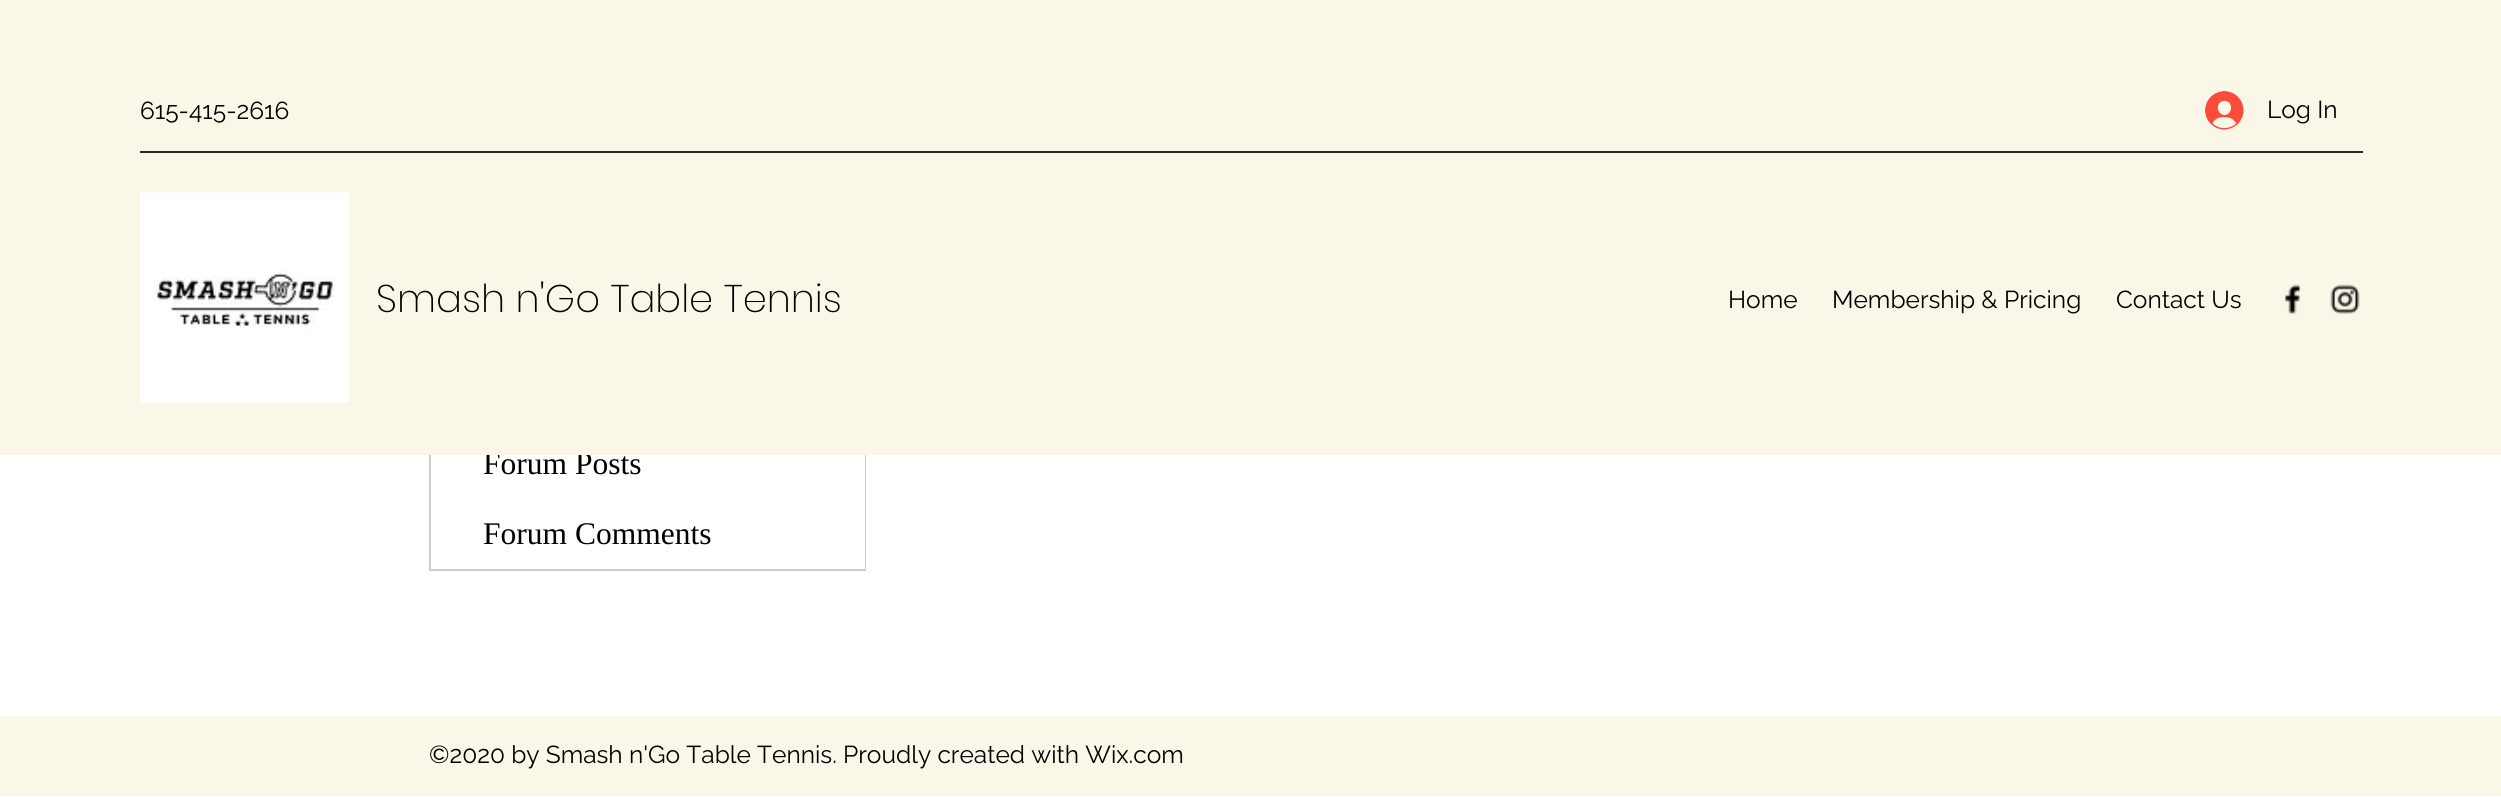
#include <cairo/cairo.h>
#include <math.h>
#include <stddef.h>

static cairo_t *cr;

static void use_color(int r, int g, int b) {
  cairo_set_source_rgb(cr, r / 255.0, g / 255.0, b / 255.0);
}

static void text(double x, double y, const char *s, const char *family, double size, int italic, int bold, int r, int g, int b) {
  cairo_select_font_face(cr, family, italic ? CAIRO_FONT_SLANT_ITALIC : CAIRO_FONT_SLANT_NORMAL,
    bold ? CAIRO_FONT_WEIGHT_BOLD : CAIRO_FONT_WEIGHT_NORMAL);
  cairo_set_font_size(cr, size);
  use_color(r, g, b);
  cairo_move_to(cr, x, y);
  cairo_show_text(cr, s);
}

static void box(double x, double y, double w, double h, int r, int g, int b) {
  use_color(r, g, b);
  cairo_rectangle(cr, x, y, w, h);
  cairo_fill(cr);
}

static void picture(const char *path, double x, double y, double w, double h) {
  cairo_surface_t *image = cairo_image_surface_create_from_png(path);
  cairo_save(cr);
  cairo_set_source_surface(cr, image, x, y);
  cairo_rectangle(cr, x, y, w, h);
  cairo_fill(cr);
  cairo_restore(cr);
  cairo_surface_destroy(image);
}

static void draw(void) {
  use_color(255, 255, 255);
  cairo_paint(cr);
  cairo_rectangle(cr, 430, 288, 435, 282);
  use_color(204, 204, 204);
  cairo_stroke(cr);
  box(864, 455, 1, 114, 255, 255, 255);
  box(0, 716, 2501, 80, 250, 247, 232);
  text(483, 474, "Forum Posts", "Liberation Serif", 31.5, 0, 0, 0, 0, 0);
  box(0, 0, 2501, 455, 250, 247, 232);
  picture("img_04.png", 2330, 284, 30, 30);
  picture("img_03.png", 2285, 284, 16, 30);
  text(2116, 308, "Contact Us", "Raleway", 24.5, 0, 0, 0, 0, 0);
  text(1832, 308, "Membership & Pricing", "Raleway", 24.5, 0, 0, 0, 0, 0);
  text(1728, 308, "Home", "Raleway", 24.5, 0, 0, 0, 0, 0);
  text(376, 312, "Smash n'Go Table Tennis", "Poppins ExtraLight", 38.5, 0, 0, 0, 0, 0);
  picture("img_02.png", 140, 192, 210, 211);
  box(140, 151, 2223, 2, 38, 37, 35);
  picture("img_01.png", 2205, 91, 39, 39);
  text(2267, 118, "Log In", "Raleway", 24.5, 0, 0, 0, 0, 0);
  text(140, 119, "615-415-2616", "Raleway", 24.5, 0, 0, 0, 0, 0);
  text(483, 544, "Forum Comments", "Liberation Serif", 31.5, 0, 0, 0, 0, 0);
  text(429, 763, "©2020 by Smash n'Go Table Tennis. Proudly created with Wix.com", "Raleway", 24.5, 0, 0, 0, 0, 0);
}

int main(void) {
  cairo_surface_t *surface = cairo_image_surface_create(CAIRO_FORMAT_RGB24, 2501, 797);
  cr = cairo_create(surface);
  cairo_font_options_t *options = cairo_font_options_create();
  cairo_font_options_set_hint_metrics(options, CAIRO_HINT_METRICS_OFF);
  cairo_font_options_set_hint_style(options, CAIRO_HINT_STYLE_NONE);
  cairo_set_font_options(cr, options);
  cairo_set_miter_limit(cr, 4);
  draw();
  cairo_surface_write_to_png(surface, "out.png");
  cairo_font_options_destroy(options);
  cairo_destroy(cr);
  cairo_surface_destroy(surface);
  return 0;
}
